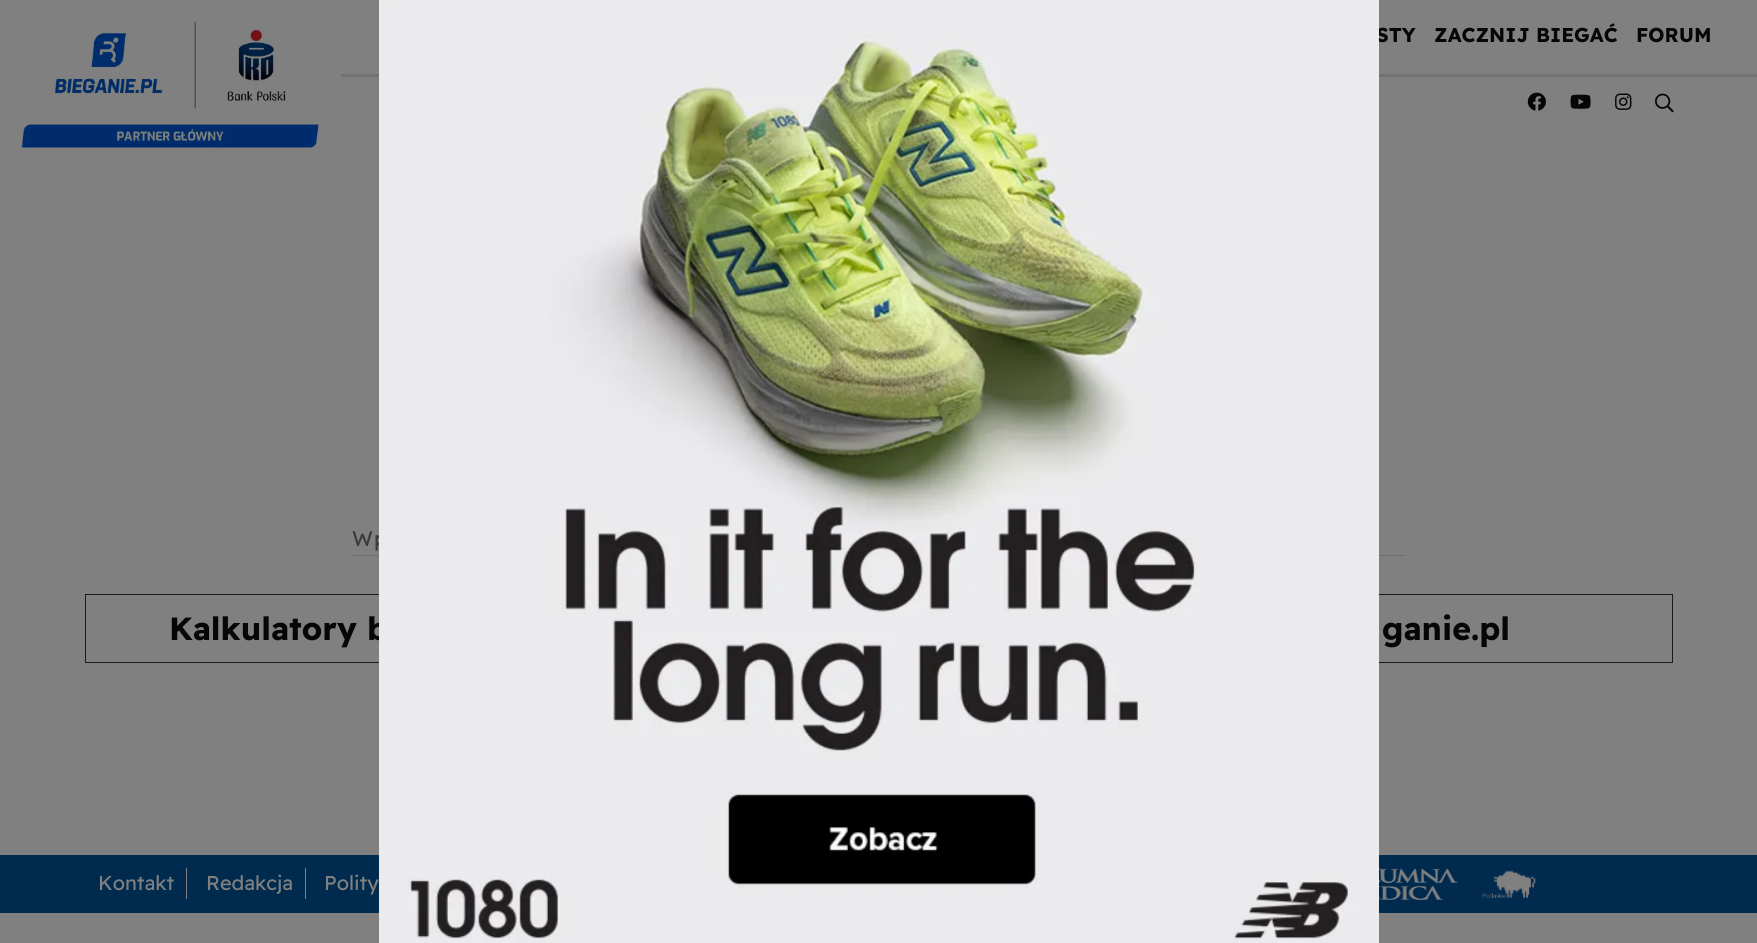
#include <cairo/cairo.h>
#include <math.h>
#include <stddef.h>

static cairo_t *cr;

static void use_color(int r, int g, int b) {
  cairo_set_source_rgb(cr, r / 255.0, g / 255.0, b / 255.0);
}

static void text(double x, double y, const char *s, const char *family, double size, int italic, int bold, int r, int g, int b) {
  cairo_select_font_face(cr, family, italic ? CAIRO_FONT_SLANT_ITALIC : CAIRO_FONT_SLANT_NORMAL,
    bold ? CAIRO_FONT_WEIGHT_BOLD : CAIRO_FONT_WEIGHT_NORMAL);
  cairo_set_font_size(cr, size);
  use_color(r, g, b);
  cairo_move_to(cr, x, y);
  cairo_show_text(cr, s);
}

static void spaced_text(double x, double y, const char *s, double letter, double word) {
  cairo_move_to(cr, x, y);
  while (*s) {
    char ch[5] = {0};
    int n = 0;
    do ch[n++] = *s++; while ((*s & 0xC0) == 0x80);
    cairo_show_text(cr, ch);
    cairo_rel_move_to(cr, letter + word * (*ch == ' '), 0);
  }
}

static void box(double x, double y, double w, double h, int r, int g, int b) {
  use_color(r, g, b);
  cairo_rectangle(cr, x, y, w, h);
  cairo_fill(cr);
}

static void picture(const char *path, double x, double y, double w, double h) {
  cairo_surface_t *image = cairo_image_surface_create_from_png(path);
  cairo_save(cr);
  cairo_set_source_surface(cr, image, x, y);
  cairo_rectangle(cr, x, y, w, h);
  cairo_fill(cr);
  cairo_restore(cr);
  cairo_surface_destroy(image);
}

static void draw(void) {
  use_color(128, 128, 128);
  cairo_paint(cr);
  box(340, 74, 1417, 3, 114, 114, 114);
  picture("img_01.png", 21, 21, 320, 127);
  picture("img_02.png", 1527, 92, 19, 19);
  picture("img_03.png", 1570, 94, 21, 15);
  picture("img_04.png", 1615, 93, 17, 17);
  picture("img_05.png", 1655, 93, 19, 20);
  box(351, 555, 1055, 1, 111, 111, 111);
  cairo_rectangle(cr, 85.5, 594.5, 503, 68);
  use_color(26, 26, 26);
  cairo_set_line_width(cr, 1);
  cairo_stroke(cr);
  cairo_rectangle(cr, 1169.5, 594.5, 503, 68);
  cairo_stroke(cr);
  box(0, 855, 1757, 58, 0, 42, 78);
  box(186, 868, 1, 31, 128, 128, 128);
  box(305, 868, 1, 31, 128, 128, 128);
  picture("img_07.png", 1379, 868, 79, 32);
  picture("img_08.png", 1482, 870, 54, 29);
  text(1376, 42, "STY", "Readex Pro", 20, 0, 1, 6, 6, 6);
  text(1434, 42, "ZACZNIJ BIEGAĆ", "Readex Pro", 20, 0, 1, 6, 6, 6);
  text(1636, 42, "FORUM", "Readex Pro", 20, 0, 1, 6, 6, 6);
  cairo_select_font_face(cr, "Readex Pro", CAIRO_FONT_SLANT_NORMAL, CAIRO_FONT_WEIGHT_NORMAL);
  cairo_set_font_size(cr, 21);
  use_color(59, 59, 59);
  spaced_text(352, 546, "Wp", 1, 0);
  text(169, 640, "Kalkulatory b", "Readex Pro", 32, 0, 1, 6, 6, 6);
  text(1382, 640, "ganie.pl", "Readex Pro", 32, 0, 1, 6, 6, 6);
  text(98, 890, "Kontakt", "Readex Pro", 20, 0, 0, 128, 128, 128);
  text(206, 890, "Redakcja", "Readex Pro", 20, 0, 0, 128, 128, 128);
  text(324, 890, "Polity", "Readex Pro", 20, 0, 0, 128, 128, 128);
  picture("img_06.png", 379, 0, 1000, 943);
}

int main(void) {
  cairo_surface_t *surface = cairo_image_surface_create(CAIRO_FORMAT_RGB24, 1757, 943);
  cr = cairo_create(surface);
  cairo_font_options_t *options = cairo_font_options_create();
  cairo_font_options_set_hint_metrics(options, CAIRO_HINT_METRICS_OFF);
  cairo_font_options_set_hint_style(options, CAIRO_HINT_STYLE_NONE);
  cairo_set_font_options(cr, options);
  cairo_set_miter_limit(cr, 4);
  draw();
  cairo_surface_write_to_png(surface, "out.png");
  cairo_font_options_destroy(options);
  cairo_destroy(cr);
  cairo_surface_destroy(surface);
  return 0;
}
